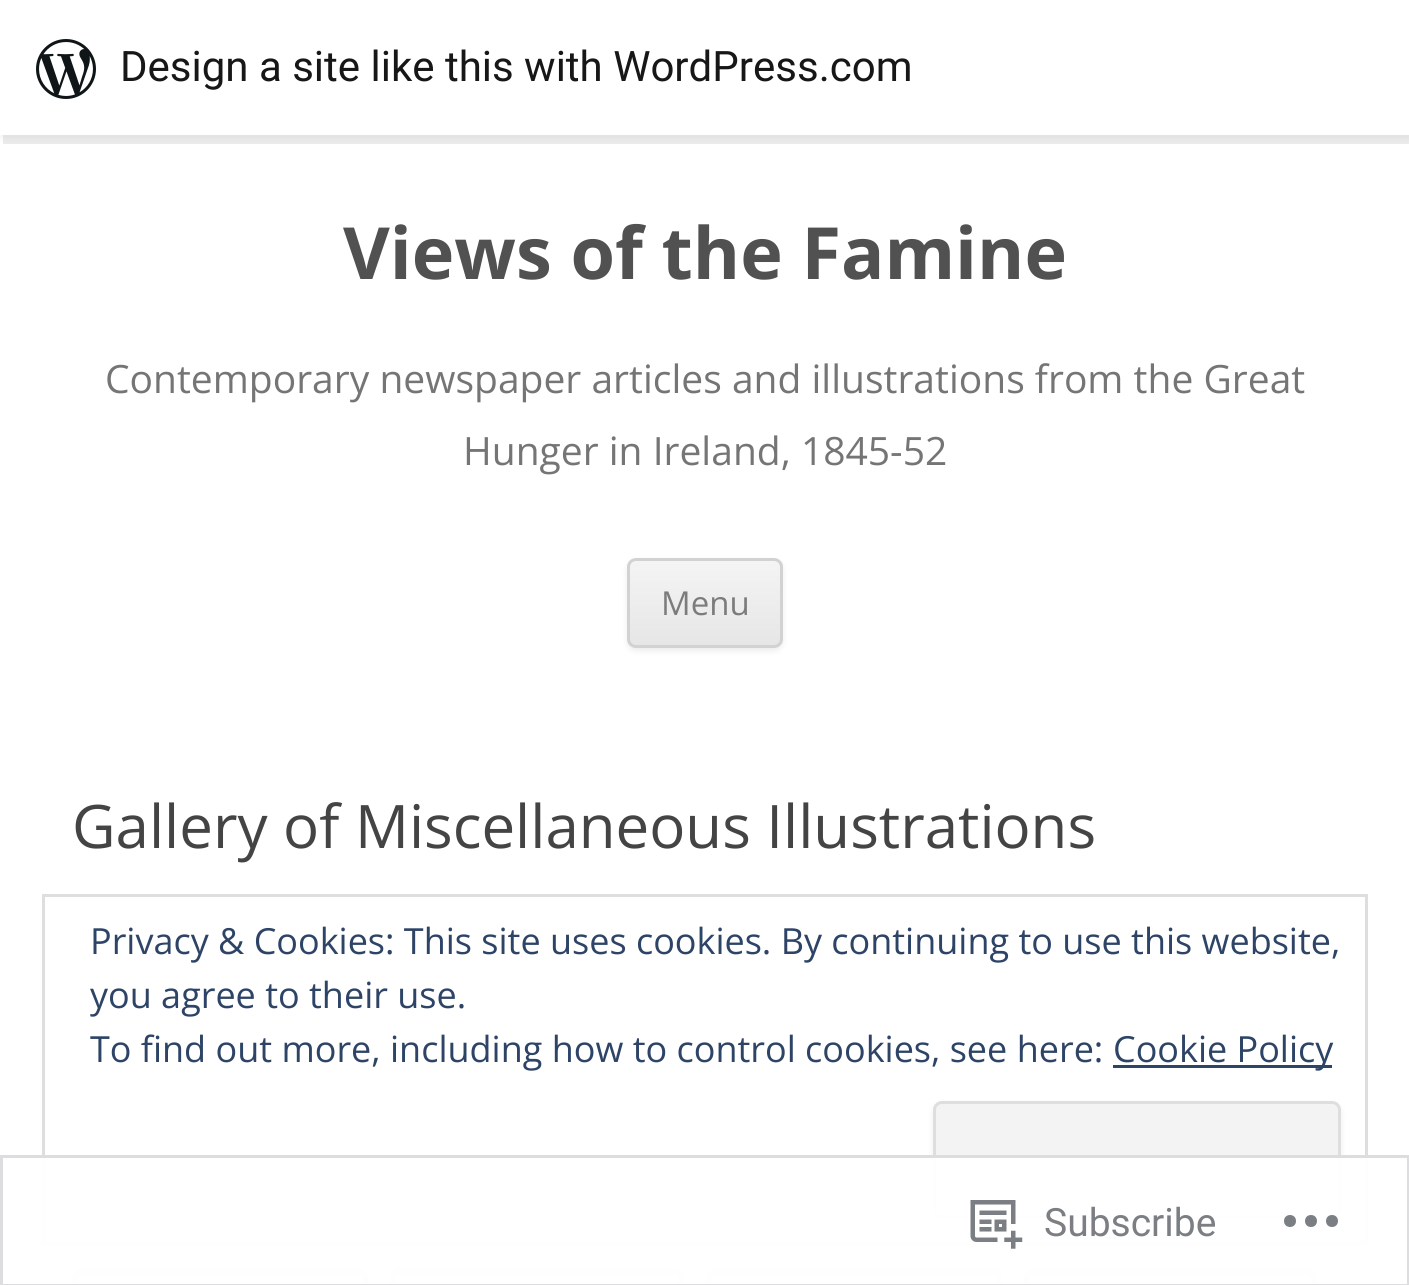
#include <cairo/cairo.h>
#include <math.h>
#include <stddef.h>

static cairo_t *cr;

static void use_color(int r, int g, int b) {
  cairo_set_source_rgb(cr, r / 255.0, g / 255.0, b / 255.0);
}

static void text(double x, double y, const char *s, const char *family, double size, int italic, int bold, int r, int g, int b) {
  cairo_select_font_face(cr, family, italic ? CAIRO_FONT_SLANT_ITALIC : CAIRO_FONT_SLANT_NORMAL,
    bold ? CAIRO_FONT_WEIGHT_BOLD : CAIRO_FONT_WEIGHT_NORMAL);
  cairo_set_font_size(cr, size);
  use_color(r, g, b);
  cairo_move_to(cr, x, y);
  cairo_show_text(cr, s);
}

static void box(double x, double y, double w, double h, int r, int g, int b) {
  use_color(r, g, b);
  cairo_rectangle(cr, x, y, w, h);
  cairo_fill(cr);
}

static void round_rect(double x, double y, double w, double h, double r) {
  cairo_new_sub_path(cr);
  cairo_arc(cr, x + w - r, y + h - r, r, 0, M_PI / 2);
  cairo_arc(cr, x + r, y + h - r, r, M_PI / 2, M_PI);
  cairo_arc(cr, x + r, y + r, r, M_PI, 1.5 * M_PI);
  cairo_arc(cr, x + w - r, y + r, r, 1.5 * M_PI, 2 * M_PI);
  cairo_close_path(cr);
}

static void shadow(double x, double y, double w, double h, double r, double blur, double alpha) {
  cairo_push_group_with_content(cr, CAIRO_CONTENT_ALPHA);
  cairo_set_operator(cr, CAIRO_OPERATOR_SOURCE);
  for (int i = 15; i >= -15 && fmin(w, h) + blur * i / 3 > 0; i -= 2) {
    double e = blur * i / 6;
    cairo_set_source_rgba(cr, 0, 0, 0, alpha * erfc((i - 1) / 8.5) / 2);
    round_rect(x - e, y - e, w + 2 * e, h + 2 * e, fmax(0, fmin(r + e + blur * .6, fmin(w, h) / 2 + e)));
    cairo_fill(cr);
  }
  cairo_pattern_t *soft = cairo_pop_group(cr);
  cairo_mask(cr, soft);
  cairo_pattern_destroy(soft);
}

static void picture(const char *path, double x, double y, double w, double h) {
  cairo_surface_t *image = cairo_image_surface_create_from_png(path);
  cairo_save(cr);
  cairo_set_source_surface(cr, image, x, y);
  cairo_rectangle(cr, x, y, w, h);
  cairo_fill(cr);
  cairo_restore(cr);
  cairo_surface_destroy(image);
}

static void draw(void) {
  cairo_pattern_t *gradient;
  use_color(255, 255, 255);
  cairo_paint(cr);
  use_color(0, 0, 0);
  shadow(0, 3, 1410, 135, 0, 3, 0.05);
  cairo_set_source_rgba(cr, 0, 0, 0, 0.08);
  cairo_new_path(cr);
  cairo_move_to(cr, 3, 135);
  cairo_line_to(cr, 3, 144);
  cairo_line_to(cr, 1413, 144);
  cairo_line_to(cr, 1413, 9);
  cairo_line_to(cr, 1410, 9);
  cairo_line_to(cr, 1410, 135);
  cairo_close_path(cr);
  cairo_fill(cr);
  box(0, 0, 1409, 135, 255, 255, 255);
  picture("img_01.png", 36, 39, 60, 60);
  use_color(64, 64, 64);
  shadow(627, 561, 156, 90, 9, 3, 0.1);
  cairo_save(cr);
  round_rect(627, 558, 156, 90, 9);
  cairo_clip(cr);
  gradient = cairo_pattern_create_linear(705, 561, 705, 645);
  cairo_pattern_add_color_stop_rgba(gradient, 0, 0.957, 0.957, 0.957, 1);
  cairo_pattern_add_color_stop_rgba(gradient, 1, 0.902, 0.902, 0.902, 1);
  cairo_set_source(cr, gradient);
  cairo_pattern_destroy(gradient);
  cairo_rectangle(cr, 627, 561, 156, 84);
  cairo_fill(cr);
  cairo_restore(cr);
  round_rect(628.5, 559.5, 153, 87, 7.5);
  use_color(210, 210, 210);
  cairo_set_line_width(cr, 3);
  cairo_stroke(cr);
  cairo_save(cr);
  cairo_set_fill_rule(cr, CAIRO_FILL_RULE_EVEN_ODD);
  cairo_new_path(cr);
  cairo_move_to(cr, 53, 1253);
  cairo_line_to(cr, 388, 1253);
  cairo_line_to(cr, 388, 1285);
  cairo_line_to(cr, 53, 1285);
  cairo_close_path(cr);
  cairo_move_to(cr, 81, 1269);
  cairo_line_to(cr, 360, 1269);
  cairo_curve_to(cr, 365, 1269, 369, 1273, 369, 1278);
  cairo_line_to(cr, 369, 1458);
  cairo_curve_to(cr, 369, 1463, 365, 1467, 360, 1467);
  cairo_line_to(cr, 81, 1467);
  cairo_curve_to(cr, 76, 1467, 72, 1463, 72, 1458);
  cairo_line_to(cr, 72, 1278);
  cairo_curve_to(cr, 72, 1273, 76, 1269, 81, 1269);
  cairo_close_path(cr);
  cairo_clip(cr);
  use_color(0, 0, 0);
  shadow(72, 1272, 297, 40, 9, 6, 0.2);
  cairo_restore(cr);
  round_rect(75, 1272, 291, 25, 6);
  use_color(207, 207, 207);
  cairo_set_line_width(cr, 6);
  cairo_stroke(cr);
  cairo_save(cr);
  cairo_set_fill_rule(cr, CAIRO_FILL_RULE_EVEN_ODD);
  cairo_new_path(cr);
  cairo_move_to(cr, 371, 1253);
  cairo_line_to(cr, 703, 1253);
  cairo_line_to(cr, 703, 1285);
  cairo_line_to(cr, 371, 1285);
  cairo_close_path(cr);
  cairo_move_to(cr, 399, 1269);
  cairo_line_to(cr, 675, 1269);
  cairo_curve_to(cr, 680, 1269, 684, 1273, 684, 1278);
  cairo_line_to(cr, 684, 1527);
  cairo_curve_to(cr, 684, 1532, 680, 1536, 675, 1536);
  cairo_line_to(cr, 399, 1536);
  cairo_curve_to(cr, 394, 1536, 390, 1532, 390, 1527);
  cairo_line_to(cr, 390, 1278);
  cairo_curve_to(cr, 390, 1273, 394, 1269, 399, 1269);
  cairo_close_path(cr);
  cairo_clip(cr);
  use_color(0, 0, 0);
  shadow(390, 1272, 294, 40, 9, 6, 0.2);
  cairo_restore(cr);
  round_rect(393, 1272, 288, 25, 6);
  cairo_stroke(cr);
  cairo_save(cr);
  cairo_set_fill_rule(cr, CAIRO_FILL_RULE_EVEN_ODD);
  cairo_new_path(cr);
  cairo_move_to(cr, 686, 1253);
  cairo_line_to(cr, 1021, 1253);
  cairo_line_to(cr, 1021, 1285);
  cairo_line_to(cr, 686, 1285);
  cairo_close_path(cr);
  cairo_move_to(cr, 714, 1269);
  cairo_line_to(cr, 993, 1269);
  cairo_curve_to(cr, 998, 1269, 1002, 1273, 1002, 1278);
  cairo_line_to(cr, 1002, 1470);
  cairo_curve_to(cr, 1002, 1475, 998, 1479, 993, 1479);
  cairo_line_to(cr, 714, 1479);
  cairo_curve_to(cr, 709, 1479, 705, 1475, 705, 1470);
  cairo_line_to(cr, 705, 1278);
  cairo_curve_to(cr, 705, 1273, 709, 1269, 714, 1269);
  cairo_close_path(cr);
  cairo_clip(cr);
  use_color(0, 0, 0);
  shadow(705, 1272, 297, 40, 9, 6, 0.2);
  cairo_restore(cr);
  round_rect(708, 1272, 291, 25, 6);
  cairo_stroke(cr);
  cairo_save(cr);
  cairo_set_fill_rule(cr, CAIRO_FILL_RULE_EVEN_ODD);
  cairo_new_path(cr);
  cairo_move_to(cr, 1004, 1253);
  cairo_line_to(cr, 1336, 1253);
  cairo_line_to(cr, 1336, 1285);
  cairo_line_to(cr, 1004, 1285);
  cairo_close_path(cr);
  cairo_move_to(cr, 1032, 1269);
  cairo_line_to(cr, 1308, 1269);
  cairo_curve_to(cr, 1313, 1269, 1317, 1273, 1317, 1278);
  cairo_line_to(cr, 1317, 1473);
  cairo_curve_to(cr, 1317, 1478, 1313, 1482, 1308, 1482);
  cairo_line_to(cr, 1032, 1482);
  cairo_curve_to(cr, 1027, 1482, 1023, 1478, 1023, 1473);
  cairo_line_to(cr, 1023, 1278);
  cairo_curve_to(cr, 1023, 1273, 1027, 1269, 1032, 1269);
  cairo_close_path(cr);
  cairo_clip(cr);
  use_color(0, 0, 0);
  shadow(1023, 1272, 294, 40, 9, 6, 0.2);
  cairo_restore(cr);
  round_rect(1026, 1272, 288, 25, 6);
  cairo_stroke(cr);
  cairo_rectangle(cr, 43.5, 895.5, 1323, 348);
  use_color(222, 222, 222);
  cairo_set_line_width(cr, 3);
  cairo_stroke(cr);
  box(1113, 1065, 219, 3, 46, 68, 103);
  use_color(64, 64, 64);
  shadow(933, 1104, 408, 117, 9, 3, 0.1);
  use_color(243, 243, 243);
  round_rect(934.5, 1102.5, 405, 114, 7.5);
  cairo_fill_preserve(cr);
  use_color(222, 222, 222);
  cairo_stroke(cr);
  cairo_set_source_rgba(cr, 1, 1, 1, 0.98);
  cairo_rectangle(cr, 42, 1155, 1326, 130);
  cairo_fill(cr);
  cairo_rectangle(cr, 1.5, 1156.5, 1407, 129);
  cairo_set_source_rgba(cr, 0.863, 0.863, 0.871, 0.98);
  cairo_stroke(cr);
  picture("img_02.png", 970, 1200, 53, 49);
  use_color(123, 127, 132);
  cairo_new_path(cr);
  cairo_move_to(cr, 1296, 1221);
  cairo_curve_to(cr, 1296, 1229, 1284, 1229, 1284, 1221);
  cairo_curve_to(cr, 1284, 1213, 1296, 1213, 1296, 1221);
  cairo_close_path(cr);
  cairo_move_to(cr, 1332, 1215);
  cairo_curve_to(cr, 1324, 1215, 1324, 1227, 1332, 1227);
  cairo_curve_to(cr, 1340, 1227, 1340, 1215, 1332, 1215);
  cairo_close_path(cr);
  cairo_move_to(cr, 1311, 1215);
  cairo_curve_to(cr, 1303, 1215, 1303, 1227, 1311, 1227);
  cairo_curve_to(cr, 1319, 1227, 1319, 1215, 1311, 1215);
  cairo_close_path(cr);
  cairo_fill(cr);
  text(120, 81, "Design a site like this with WordPress.com", "Roboto", 42, 0, 0, 23, 23, 23);
  text(343, 279, "Views of the Famine", "Open Sans", 72, 0, 1, 81, 81, 81);
  text(105, 393, "Contemporary newspaper articles and illustrations from the Great", "Open Sans", 39, 0, 0, 117, 117, 117);
  text(463, 465, "Hunger in Ireland, 1845-52", "Open Sans", 39, 0, 0, 117, 117, 117);
  text(661, 615, "Menu", "Open Sans", 33, 0, 0, 124, 124, 124);
  text(72, 848, "Gallery of Miscellaneous Illustrations", "Open Sans", 60, 0, 0, 68, 68, 68);
  text(90, 954, "Privacy & Cookies: This site uses cookies. By continuing to use this website,", "Open Sans", 36, 0, 0, 46, 68, 103);
  text(90, 1008, "you agree to their use.", "Open Sans", 36, 0, 0, 46, 68, 103);
  text(90, 1062, "To find out more, including how to control cookies, see here:", "Open Sans", 36, 0, 0, 46, 68, 103);
  text(1113, 1062, "Cookie Policy", "Open Sans", 36, 0, 0, 46, 68, 103);
  text(1044, 1236, "Subscribe", "Roboto", 39, 0, 0, 123, 127, 132);
}

int main(void) {
  cairo_surface_t *surface = cairo_image_surface_create(CAIRO_FORMAT_RGB24, 1409, 1285);
  cr = cairo_create(surface);
  cairo_font_options_t *options = cairo_font_options_create();
  cairo_font_options_set_hint_metrics(options, CAIRO_HINT_METRICS_OFF);
  cairo_font_options_set_hint_style(options, CAIRO_HINT_STYLE_NONE);
  cairo_set_font_options(cr, options);
  cairo_set_miter_limit(cr, 4);
  draw();
  cairo_surface_write_to_png(surface, "out.png");
  cairo_font_options_destroy(options);
  cairo_destroy(cr);
  cairo_surface_destroy(surface);
  return 0;
}
